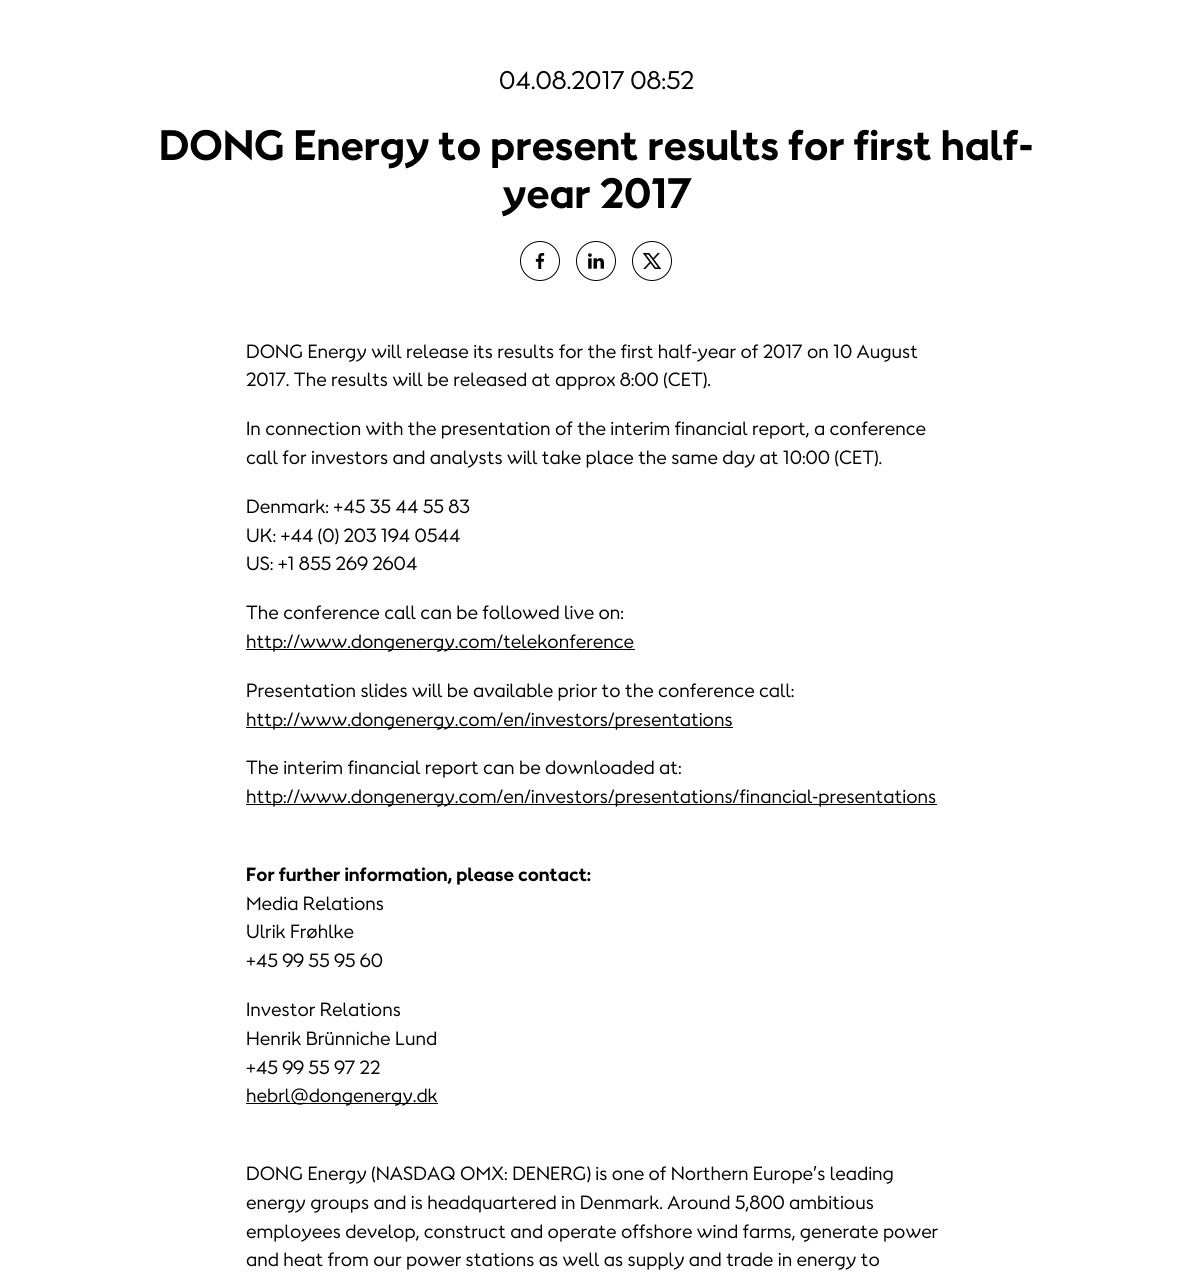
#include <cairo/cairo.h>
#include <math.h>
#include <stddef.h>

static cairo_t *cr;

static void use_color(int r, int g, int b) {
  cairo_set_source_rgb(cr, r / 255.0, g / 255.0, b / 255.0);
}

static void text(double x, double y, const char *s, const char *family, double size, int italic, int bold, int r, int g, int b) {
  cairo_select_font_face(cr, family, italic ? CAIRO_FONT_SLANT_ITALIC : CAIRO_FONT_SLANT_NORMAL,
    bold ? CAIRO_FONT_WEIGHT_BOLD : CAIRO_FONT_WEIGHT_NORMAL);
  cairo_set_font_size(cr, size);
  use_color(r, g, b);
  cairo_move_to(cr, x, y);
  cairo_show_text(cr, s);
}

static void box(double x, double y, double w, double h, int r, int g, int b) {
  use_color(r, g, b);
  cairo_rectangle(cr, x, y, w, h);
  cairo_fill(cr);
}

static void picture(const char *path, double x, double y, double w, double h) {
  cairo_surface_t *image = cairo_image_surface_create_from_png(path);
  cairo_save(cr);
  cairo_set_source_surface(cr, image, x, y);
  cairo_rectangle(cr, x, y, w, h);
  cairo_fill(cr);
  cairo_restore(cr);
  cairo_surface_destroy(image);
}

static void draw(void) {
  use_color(255, 255, 255);
  cairo_paint(cr);
  cairo_arc(cr, 540, 261, 19.5, 0, 2 * M_PI);
  use_color(0, 0, 0);
  cairo_set_line_width(cr, 1);
  cairo_stroke(cr);
  picture("img_01.png", 535, 253, 10, 16);
  cairo_arc(cr, 596, 261, 19.5, 0, 2 * M_PI);
  cairo_stroke(cr);
  picture("img_02.png", 588, 253, 16, 16);
  cairo_arc(cr, 652, 261, 19.5, 0, 2 * M_PI);
  cairo_stroke(cr);
  picture("img_03.png", 642, 253, 20, 16);
  box(246, 649, 389, 1, 0, 0, 0);
  box(246, 727, 487, 1, 0, 0, 0);
  box(246, 804, 691, 1, 0, 0, 0);
  box(246, 1103, 192, 1, 0, 0, 0);
  text(499, 89, "04.08.2017 08:52", "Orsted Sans", 24, 0, 0, 0, 0, 0);
  text(159, 160, "DONG Energy to present results for first half-", "Orsted Sans", 40, 0, 1, 0, 0, 0);
  text(502, 208, "year 2017", "Orsted Sans", 40, 0, 1, 0, 0, 0);
  text(246, 358, "DONG Energy will release its results for the first half-year of 2017 on 10 August", "Orsted Sans", 18, 0, 0, 0, 0, 0);
  text(246, 386, "2017. The results will be released at approx 8:00 (CET).", "Orsted Sans", 18, 0, 0, 0, 0, 0);
  text(246, 435, "In connection with the presentation of the interim financial report, a conference", "Orsted Sans", 18, 0, 0, 0, 0, 0);
  text(246, 464, "call for investors and analysts will take place the same day at 10:00 (CET).", "Orsted Sans", 18, 0, 0, 0, 0, 0);
  text(246, 513, "Denmark: +45 35 44 55 83", "Orsted Sans", 18, 0, 0, 0, 0, 0);
  text(246, 542, "UK: +44 (0) 203 194 0544", "Orsted Sans", 18, 0, 0, 0, 0, 0);
  text(246, 570, "US: +1 855 269 2604", "Orsted Sans", 18, 0, 0, 0, 0, 0);
  text(246, 619, "The conference call can be followed live on:", "Orsted Sans", 18, 0, 0, 0, 0, 0);
  text(246, 648, "http://www.dongenergy.com/telekonference", "Orsted Sans", 18, 0, 0, 0, 0, 0);
  text(246, 697, "Presentation slides will be available prior to the conference call:", "Orsted Sans", 18, 0, 0, 0, 0, 0);
  text(246, 726, "http://www.dongenergy.com/en/investors/presentations", "Orsted Sans", 18, 0, 0, 0, 0, 0);
  text(246, 774, "The interim financial report can be downloaded at:", "Orsted Sans", 18, 0, 0, 0, 0, 0);
  text(246, 803, "http://www.dongenergy.com/en/investors/presentations/financial-presentations", "Orsted Sans", 18, 0, 0, 0, 0, 0);
  text(246, 881, "For further information, please contact:", "Orsted Sans", 18, 0, 1, 0, 0, 0);
  text(246, 910, "Media Relations", "Orsted Sans", 18, 0, 0, 0, 0, 0);
  text(246, 938, "Ulrik Frøhlke", "Orsted Sans", 18, 0, 0, 0, 0, 0);
  text(246, 967, "+45 99 55 95 60", "Orsted Sans", 18, 0, 0, 0, 0, 0);
  text(246, 1016, "Investor Relations", "Orsted Sans", 18, 0, 0, 0, 0, 0);
  text(246, 1045, "Henrik Brünniche Lund", "Orsted Sans", 18, 0, 0, 0, 0, 0);
  text(246, 1074, "+45 99 55 97 22", "Orsted Sans", 18, 0, 0, 0, 0, 0);
  text(246, 1102, "hebrl@dongenergy.dk", "Orsted Sans", 18, 0, 0, 0, 0, 0);
  text(246, 1180, "DONG Energy (NASDAQ OMX: DENERG) is one of Northern Europe’s leading", "Orsted Sans", 18, 0, 0, 0, 0, 0);
  text(246, 1209, "energy groups and is headquartered in Denmark. Around 5,800 ambitious", "Orsted Sans", 18, 0, 0, 0, 0, 0);
  text(246, 1238, "employees develop, construct and operate offshore wind farms, generate power", "Orsted Sans", 18, 0, 0, 0, 0, 0);
  text(246, 1266, "and heat from our power stations as well as supply and trade in energy to", "Orsted Sans", 18, 0, 0, 0, 0, 0);
}

int main(void) {
  cairo_surface_t *surface = cairo_image_surface_create(CAIRO_FORMAT_RGB24, 1193, 1276);
  cr = cairo_create(surface);
  cairo_font_options_t *options = cairo_font_options_create();
  cairo_font_options_set_hint_metrics(options, CAIRO_HINT_METRICS_OFF);
  cairo_font_options_set_hint_style(options, CAIRO_HINT_STYLE_NONE);
  cairo_set_font_options(cr, options);
  cairo_set_miter_limit(cr, 4);
  draw();
  cairo_surface_write_to_png(surface, "out.png");
  cairo_font_options_destroy(options);
  cairo_destroy(cr);
  cairo_surface_destroy(surface);
  return 0;
}
